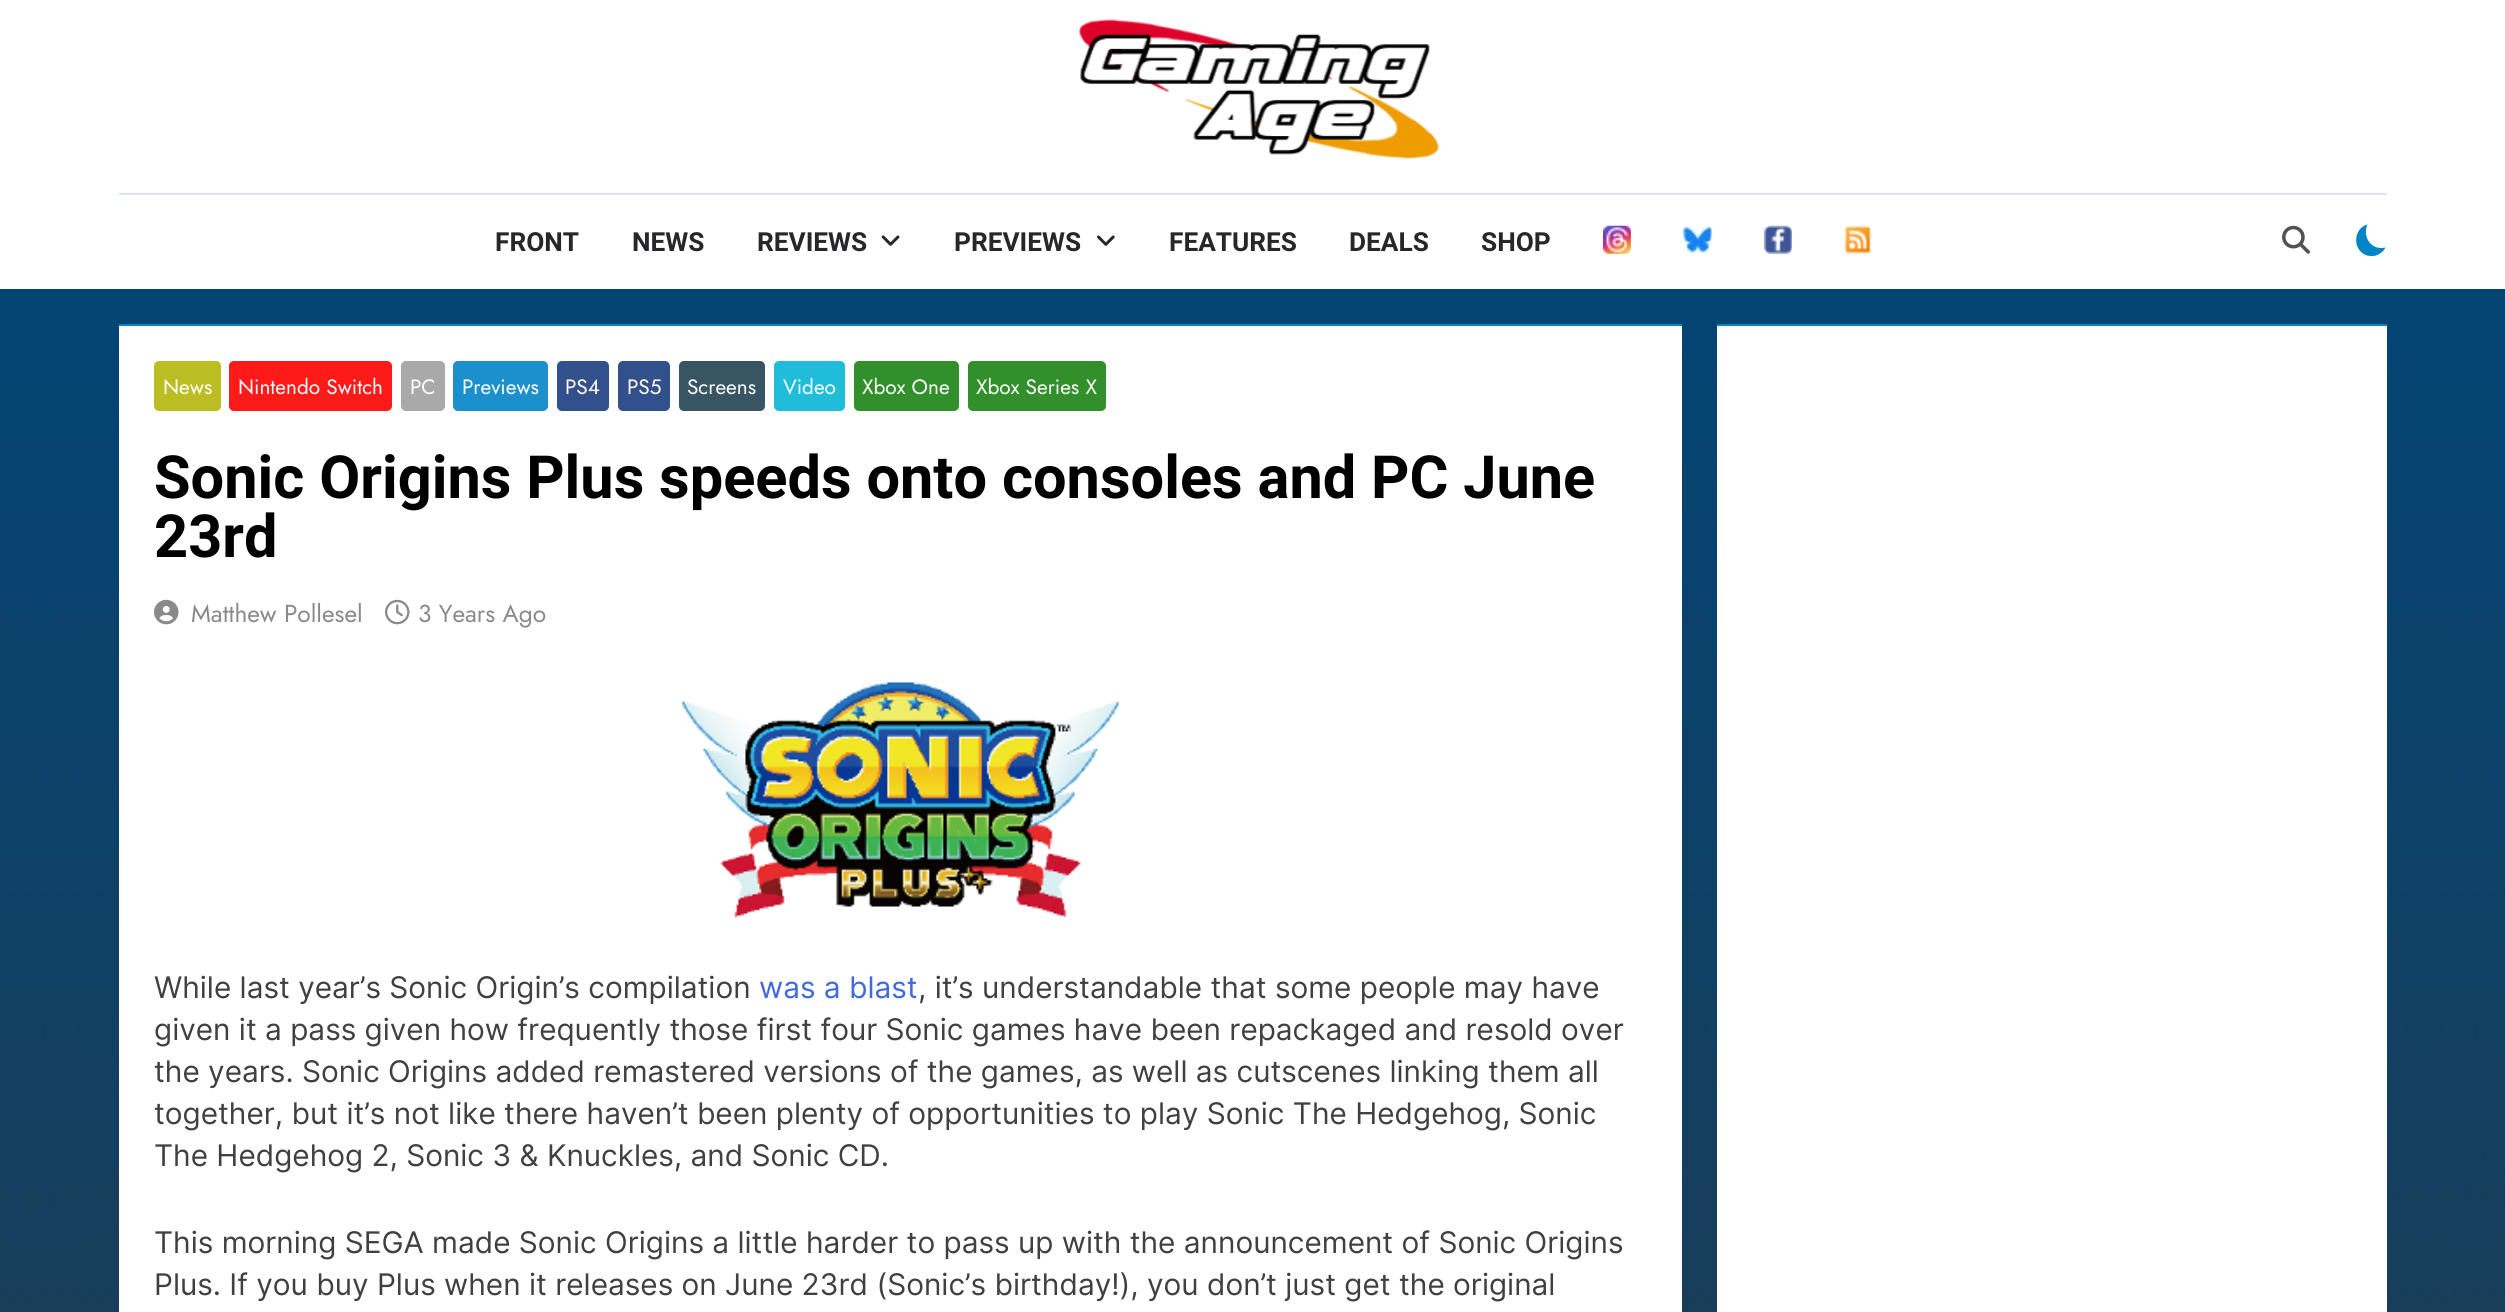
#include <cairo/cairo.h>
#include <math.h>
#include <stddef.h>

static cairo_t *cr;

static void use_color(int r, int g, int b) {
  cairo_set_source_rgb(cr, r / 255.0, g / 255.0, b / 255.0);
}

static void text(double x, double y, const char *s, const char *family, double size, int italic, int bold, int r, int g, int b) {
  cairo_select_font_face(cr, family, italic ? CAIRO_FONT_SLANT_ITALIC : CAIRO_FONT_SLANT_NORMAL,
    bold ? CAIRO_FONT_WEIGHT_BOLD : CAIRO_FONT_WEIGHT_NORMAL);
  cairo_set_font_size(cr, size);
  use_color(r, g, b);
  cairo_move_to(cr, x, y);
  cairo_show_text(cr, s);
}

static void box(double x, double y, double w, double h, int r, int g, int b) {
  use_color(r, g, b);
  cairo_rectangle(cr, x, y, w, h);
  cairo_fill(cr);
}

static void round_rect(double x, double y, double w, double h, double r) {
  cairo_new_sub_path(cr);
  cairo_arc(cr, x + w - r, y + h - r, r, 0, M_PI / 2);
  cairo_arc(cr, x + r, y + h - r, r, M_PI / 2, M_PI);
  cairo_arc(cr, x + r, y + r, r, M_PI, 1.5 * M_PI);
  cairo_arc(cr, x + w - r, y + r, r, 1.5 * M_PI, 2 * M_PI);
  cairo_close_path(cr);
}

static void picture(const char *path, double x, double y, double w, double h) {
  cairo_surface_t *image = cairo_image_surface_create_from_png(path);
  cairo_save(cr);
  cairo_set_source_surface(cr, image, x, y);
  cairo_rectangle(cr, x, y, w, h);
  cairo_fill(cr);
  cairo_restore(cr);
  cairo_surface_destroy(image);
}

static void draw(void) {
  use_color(255, 255, 255);
  cairo_paint(cr);
  picture("img_01.png", 0, 289, 2505, 1023);
  picture("img_02.png", 1079, 18, 361, 142);
  box(119, 193, 2268, 2, 217, 229, 244);
  picture("img_03.png", 881, 235, 19, 11);
  picture("img_04.png", 1097, 235, 18, 11);
  picture("img_05.png", 1603, 225, 28, 29);
  picture("img_06.png", 1683, 225, 29, 29);
  picture("img_07.png", 1764, 225, 28, 29);
  picture("img_08.png", 1844, 225, 27, 29);
  picture("img_09.png", 2282, 225, 28, 29);
  use_color(2, 132, 199);
  cairo_new_path(cr);
  cairo_move_to(cr, 2385.5, 247.5);
  cairo_curve_to(cr, 2371.5, 251, 2362, 237, 2367.5, 224.5);
  cairo_curve_to(cr, 2353.5, 228, 2352, 249, 2365.5, 255);
  cairo_curve_to(cr, 2368.5, 256, 2372.5, 256.5, 2376, 255.5);
  cairo_curve_to(cr, 2380, 254, 2383.5, 251.5, 2385.5, 247.5);
  cairo_close_path(cr);
  cairo_fill(cr);
  box(119, 326, 1563, 986, 255, 255, 255);
  box(119, 324, 1563, 2, 2, 132, 199);
  use_color(188, 188, 35);
  round_rect(154, 361, 67, 50, 5);
  cairo_fill(cr);
  use_color(255, 26, 26);
  round_rect(229, 361, 163, 50, 5);
  cairo_fill(cr);
  use_color(169, 169, 169);
  round_rect(401, 361, 44, 50, 5);
  cairo_fill(cr);
  use_color(27, 144, 205);
  round_rect(453, 361, 95, 50, 5);
  cairo_fill(cr);
  use_color(50, 80, 139);
  round_rect(557, 361, 52, 50, 5);
  cairo_fill(cr);
  round_rect(618, 361, 52, 50, 5);
  cairo_fill(cr);
  use_color(56, 85, 100);
  round_rect(679, 361, 86, 50, 5);
  cairo_fill(cr);
  use_color(31, 189, 216);
  round_rect(774, 361, 71, 50, 5);
  cairo_fill(cr);
  use_color(50, 144, 44);
  round_rect(854, 361, 105, 50, 5);
  cairo_fill(cr);
  round_rect(968, 361, 138, 50, 5);
  cairo_fill(cr);
  picture("img_10.png", 154, 599, 25, 26);
  picture("img_11.png", 385, 599, 25, 26);
  picture("img_12.png", 680, 682, 441, 236);
  box(1717, 326, 670, 986, 255, 255, 255);
  box(1717, 324, 670, 2, 2, 132, 199);
  text(495, 251, "FRONT", "Roboto", 26.25, 0, 1, 39, 39, 42);
  text(632, 251, "NEWS", "Roboto", 26.25, 0, 1, 39, 39, 42);
  text(757, 251, "REVIEWS", "Roboto", 26.25, 0, 1, 39, 39, 42);
  text(954, 251, "PREVIEWS", "Roboto", 26.25, 0, 1, 39, 39, 42);
  text(1169, 251, "FEATURES", "Roboto", 26.25, 0, 1, 39, 39, 42);
  text(1349, 251, "DEALS", "Roboto", 26.25, 0, 1, 39, 39, 42);
  text(1481, 251, "SHOP", "Roboto", 26.25, 0, 1, 39, 39, 42);
  text(163, 394, "News", "Jost", 20.75, 0, 0, 255, 255, 255);
  text(238, 394, "Nintendo Switch", "Jost", 20.75, 0, 0, 255, 255, 255);
  text(410, 394, "PC", "Jost", 20.75, 0, 0, 255, 255, 255);
  text(462, 394, "Previews", "Jost", 20.75, 0, 0, 255, 255, 255);
  text(565, 394, "PS4", "Jost", 20.75, 0, 0, 255, 255, 255);
  text(627, 394, "PS5", "Jost", 20.75, 0, 0, 255, 255, 255);
  text(687, 394, "Screens", "Jost", 20.75, 0, 0, 255, 255, 255);
  text(783, 394, "Video", "Jost", 20.75, 0, 0, 255, 255, 255);
  text(862, 394, "Xbox One", "Jost", 20.75, 0, 0, 255, 255, 255);
  text(976, 394, "Xbox Series X", "Jost", 20.75, 0, 0, 255, 255, 255);
  text(154, 498, "Sonic Origins Plus speeds onto consoles and PC June", "Roboto", 59.5, 0, 1, 0, 0, 0);
  text(154, 557, "23rd", "Roboto", 59.5, 0, 1, 0, 0, 0);
  text(191, 622, "Matthew Pollesel", "Jost", 24.5, 0, 0, 138, 138, 140);
  text(418, 622, "3 Years Ago", "Jost", 24.5, 0, 0, 138, 138, 140);
  text(154, 998, "While last year’s Sonic Origin’s compilation", "Inter", 29.75, 0, 0, 64, 64, 64);
  text(759, 998, "was a blast", "Inter", 29.75, 0, 0, 65, 105, 225);
  text(918, 998, ", it’s understandable that some people may have", "Inter", 29.75, 0, 0, 64, 64, 64);
  text(154, 1040, "given it a pass given how frequently those first four Sonic games have been repackaged and resold over", "Inter", 29.75, 0, 0, 64, 64, 64);
  text(154, 1082, "the years. Sonic Origins added remastered versions of the games, as well as cutscenes linking them all", "Inter", 29.75, 0, 0, 64, 64, 64);
  text(154, 1124, "together, but it’s not like there haven’t been plenty of opportunities to play Sonic The Hedgehog, Sonic", "Inter", 29.75, 0, 0, 64, 64, 64);
  text(154, 1166, "The Hedgehog 2, Sonic 3 & Knuckles, and Sonic CD.", "Inter", 29.75, 0, 0, 64, 64, 64);
  text(154, 1253, "This morning SEGA made Sonic Origins a little harder to pass up with the announcement of Sonic Origins", "Inter", 29.75, 0, 0, 64, 64, 64);
  text(154, 1295, "Plus. If you buy Plus when it releases on June 23rd (Sonic’s birthday!), you don’t just get the original", "Inter", 29.75, 0, 0, 64, 64, 64);
}

int main(void) {
  cairo_surface_t *surface = cairo_image_surface_create(CAIRO_FORMAT_RGB24, 2505, 1312);
  cr = cairo_create(surface);
  cairo_font_options_t *options = cairo_font_options_create();
  cairo_font_options_set_hint_metrics(options, CAIRO_HINT_METRICS_OFF);
  cairo_font_options_set_hint_style(options, CAIRO_HINT_STYLE_NONE);
  cairo_set_font_options(cr, options);
  cairo_set_miter_limit(cr, 4);
  draw();
  cairo_surface_write_to_png(surface, "out.png");
  cairo_font_options_destroy(options);
  cairo_destroy(cr);
  cairo_surface_destroy(surface);
  return 0;
}
